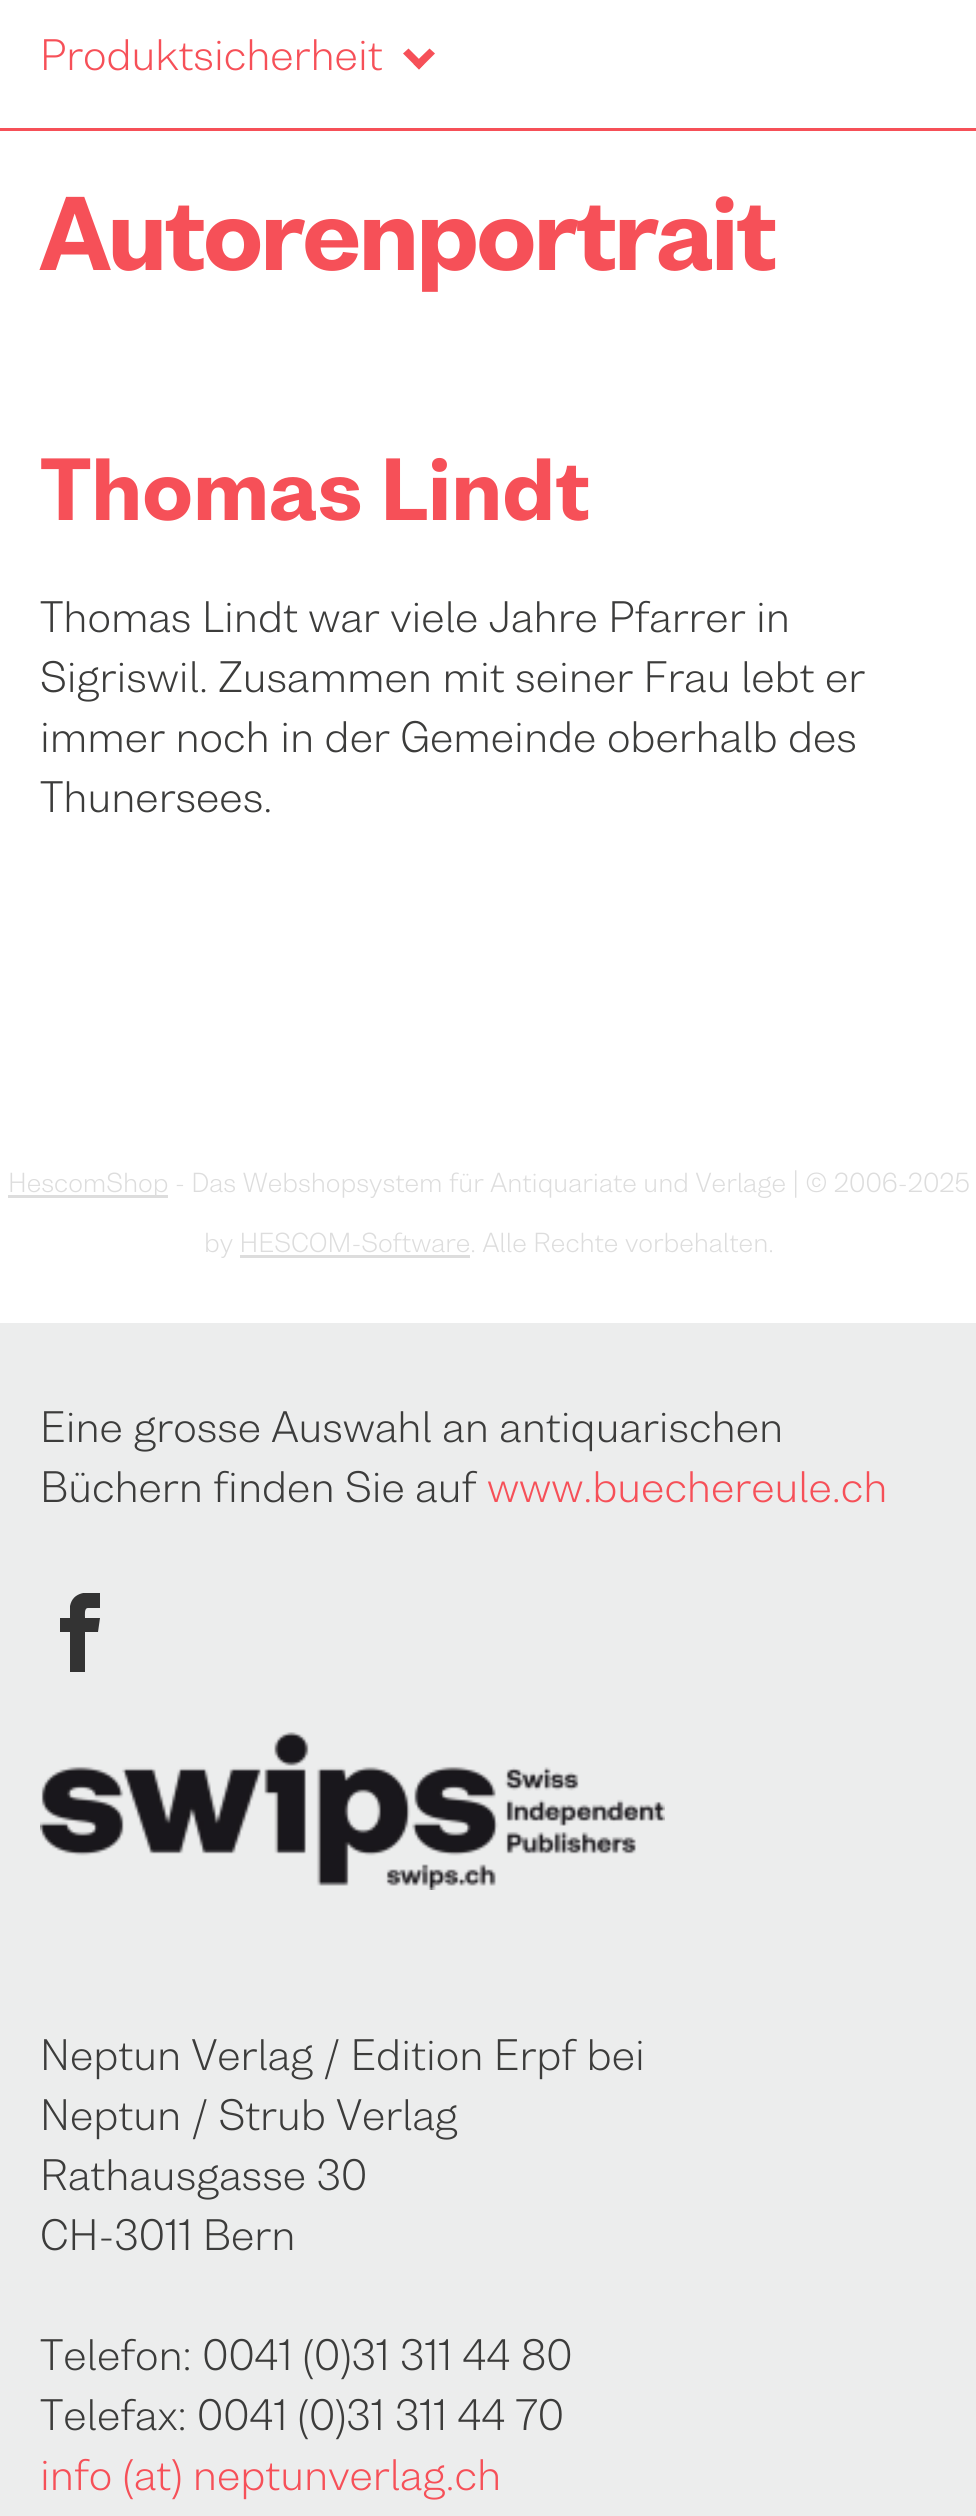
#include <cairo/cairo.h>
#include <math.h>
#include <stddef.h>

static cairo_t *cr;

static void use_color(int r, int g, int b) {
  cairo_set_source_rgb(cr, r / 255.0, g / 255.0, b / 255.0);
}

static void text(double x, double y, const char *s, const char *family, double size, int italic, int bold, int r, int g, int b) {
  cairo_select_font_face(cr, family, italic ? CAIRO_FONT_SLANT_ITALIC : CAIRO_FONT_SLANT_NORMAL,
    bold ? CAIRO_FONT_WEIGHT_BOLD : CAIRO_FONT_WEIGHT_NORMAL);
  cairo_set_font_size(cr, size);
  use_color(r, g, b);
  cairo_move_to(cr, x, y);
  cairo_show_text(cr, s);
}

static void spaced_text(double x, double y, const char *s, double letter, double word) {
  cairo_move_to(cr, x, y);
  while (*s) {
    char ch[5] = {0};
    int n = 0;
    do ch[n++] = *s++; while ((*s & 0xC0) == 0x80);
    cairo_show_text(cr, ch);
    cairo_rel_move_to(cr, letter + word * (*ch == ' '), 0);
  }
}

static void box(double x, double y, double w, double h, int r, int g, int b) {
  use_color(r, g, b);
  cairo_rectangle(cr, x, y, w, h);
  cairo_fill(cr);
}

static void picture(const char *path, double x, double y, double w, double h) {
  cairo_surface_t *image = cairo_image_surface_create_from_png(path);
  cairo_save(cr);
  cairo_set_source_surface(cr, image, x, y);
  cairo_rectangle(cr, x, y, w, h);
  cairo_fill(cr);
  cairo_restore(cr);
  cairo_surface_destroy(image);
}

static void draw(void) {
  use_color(236, 237, 237);
  cairo_paint(cr);
  box(0, 0, 976, 1323, 255, 255, 255);
  use_color(246, 80, 88);
  cairo_new_path(cr);
  cairo_move_to(cr, 429.5, 48.5);
  cairo_line_to(cr, 435, 53.5);
  cairo_line_to(cr, 419, 69.5);
  cairo_line_to(cr, 413.5, 64);
  cairo_close_path(cr);
  cairo_fill(cr);
  cairo_new_path(cr);
  cairo_move_to(cr, 408.5, 48.5);
  cairo_line_to(cr, 424, 64);
  cairo_line_to(cr, 419, 69.5);
  cairo_line_to(cr, 403, 53.5);
  cairo_close_path(cr);
  cairo_fill(cr);
  box(0, 128, 976, 3, 246, 80, 88);
  box(8, 1195, 160, 3, 221, 221, 221);
  box(240, 1255, 230, 3, 221, 221, 221);
  cairo_save(cr);
  cairo_rectangle(cr, 40, 1593, 80, 80);
  cairo_clip(cr);
  use_color(51, 51, 51);
  cairo_new_path(cr);
  cairo_move_to(cr, 88, 1608);
  cairo_line_to(cr, 100, 1608);
  cairo_line_to(cr, 100, 1592);
  cairo_curve_to(cr, 88, 1592, 73, 1591, 70, 1606);
  cairo_line_to(cr, 70, 1618);
  cairo_line_to(cr, 60, 1618);
  cairo_line_to(cr, 60, 1632);
  cairo_line_to(cr, 70, 1632);
  cairo_line_to(cr, 70, 1672);
  cairo_line_to(cr, 85, 1672);
  cairo_line_to(cr, 85, 1632);
  cairo_line_to(cr, 98, 1632);
  cairo_line_to(cr, 100, 1618);
  cairo_line_to(cr, 85, 1618);
  cairo_curve_to(cr, 85, 1615, 84, 1608, 88, 1608);
  cairo_close_path(cr);
  cairo_fill(cr);
  cairo_restore(cr);
  picture("img_01.png", 40, 1732, 625, 158);
  text(40, 70, "Produktsicherheit", "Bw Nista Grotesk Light", 40, 0, 0, 246, 80, 88);
  cairo_select_font_face(cr, "Bw Nista Grotesk ExtraBold", CAIRO_FONT_SLANT_NORMAL, CAIRO_FONT_WEIGHT_NORMAL);
  cairo_set_font_size(cr, 95);
  spaced_text(40, 270, "Autorenportrait", -2.8, 0);
  text(40, 520, "Thomas Lindt", "Bw Nista Grotesk ExtraBold", 80, 0, 0, 246, 80, 88);
  text(40, 632, "Thomas Lindt war viele Jahre Pfarrer in", "Bw Nista Grotesk Light", 40, 0, 0, 60, 60, 59);
  text(40, 692, "Sigriswil. Zusammen mit seiner Frau lebt er", "Bw Nista Grotesk Light", 40, 0, 0, 60, 60, 59);
  text(40, 752, "immer noch in der Gemeinde oberhalb des", "Bw Nista Grotesk Light", 40, 0, 0, 60, 60, 59);
  text(40, 812, "Thunersees.", "Bw Nista Grotesk Light", 40, 0, 0, 60, 60, 59);
  text(8, 1192, "HescomShop - Das Webshopsystem für Antiquariate und Verlage | © 2006-2025", "Bw Nista Grotesk Light", 25, 0, 0, 221, 221, 221);
  text(204, 1252, "by HESCOM-Software. Alle Rechte vorbehalten.", "Bw Nista Grotesk Light", 25, 0, 0, 221, 221, 221);
  text(40, 1442, "Eine grosse Auswahl an antiquarischen", "Bw Nista Grotesk Light", 40, 0, 0, 60, 60, 59);
  text(40, 1502, "Büchern finden Sie auf", "Bw Nista Grotesk Light", 40, 0, 0, 60, 60, 59);
  text(487, 1502, "www.buechereule.ch", "Bw Nista Grotesk Light", 40, 0, 0, 246, 80, 88);
  text(40, 2070, "Neptun Verlag / Edition Erpf bei", "Bw Nista Grotesk Light", 40, 0, 0, 60, 60, 59);
  text(40, 2130, "Neptun / Strub Verlag", "Bw Nista Grotesk Light", 40, 0, 0, 60, 60, 59);
  text(40, 2190, "Rathausgasse 30", "Bw Nista Grotesk Light", 40, 0, 0, 60, 60, 59);
  text(40, 2250, "CH-3011 Bern", "Bw Nista Grotesk Light", 40, 0, 0, 60, 60, 59);
  text(40, 2370, "Telefon: 0041 (0)31 311 44 80", "Bw Nista Grotesk Light", 40, 0, 0, 60, 60, 59);
  text(40, 2430, "Telefax: 0041 (0)31 311 44 70", "Bw Nista Grotesk Light", 40, 0, 0, 60, 60, 59);
  text(40, 2490, "info (at) neptunverlag.ch", "Bw Nista Grotesk Light", 40, 0, 0, 246, 80, 88);
}

int main(void) {
  cairo_surface_t *surface = cairo_image_surface_create(CAIRO_FORMAT_RGB24, 976, 2516);
  cr = cairo_create(surface);
  cairo_font_options_t *options = cairo_font_options_create();
  cairo_font_options_set_hint_metrics(options, CAIRO_HINT_METRICS_OFF);
  cairo_font_options_set_hint_style(options, CAIRO_HINT_STYLE_NONE);
  cairo_set_font_options(cr, options);
  cairo_set_miter_limit(cr, 4);
  draw();
  cairo_surface_write_to_png(surface, "out.png");
  cairo_font_options_destroy(options);
  cairo_destroy(cr);
  cairo_surface_destroy(surface);
  return 0;
}
